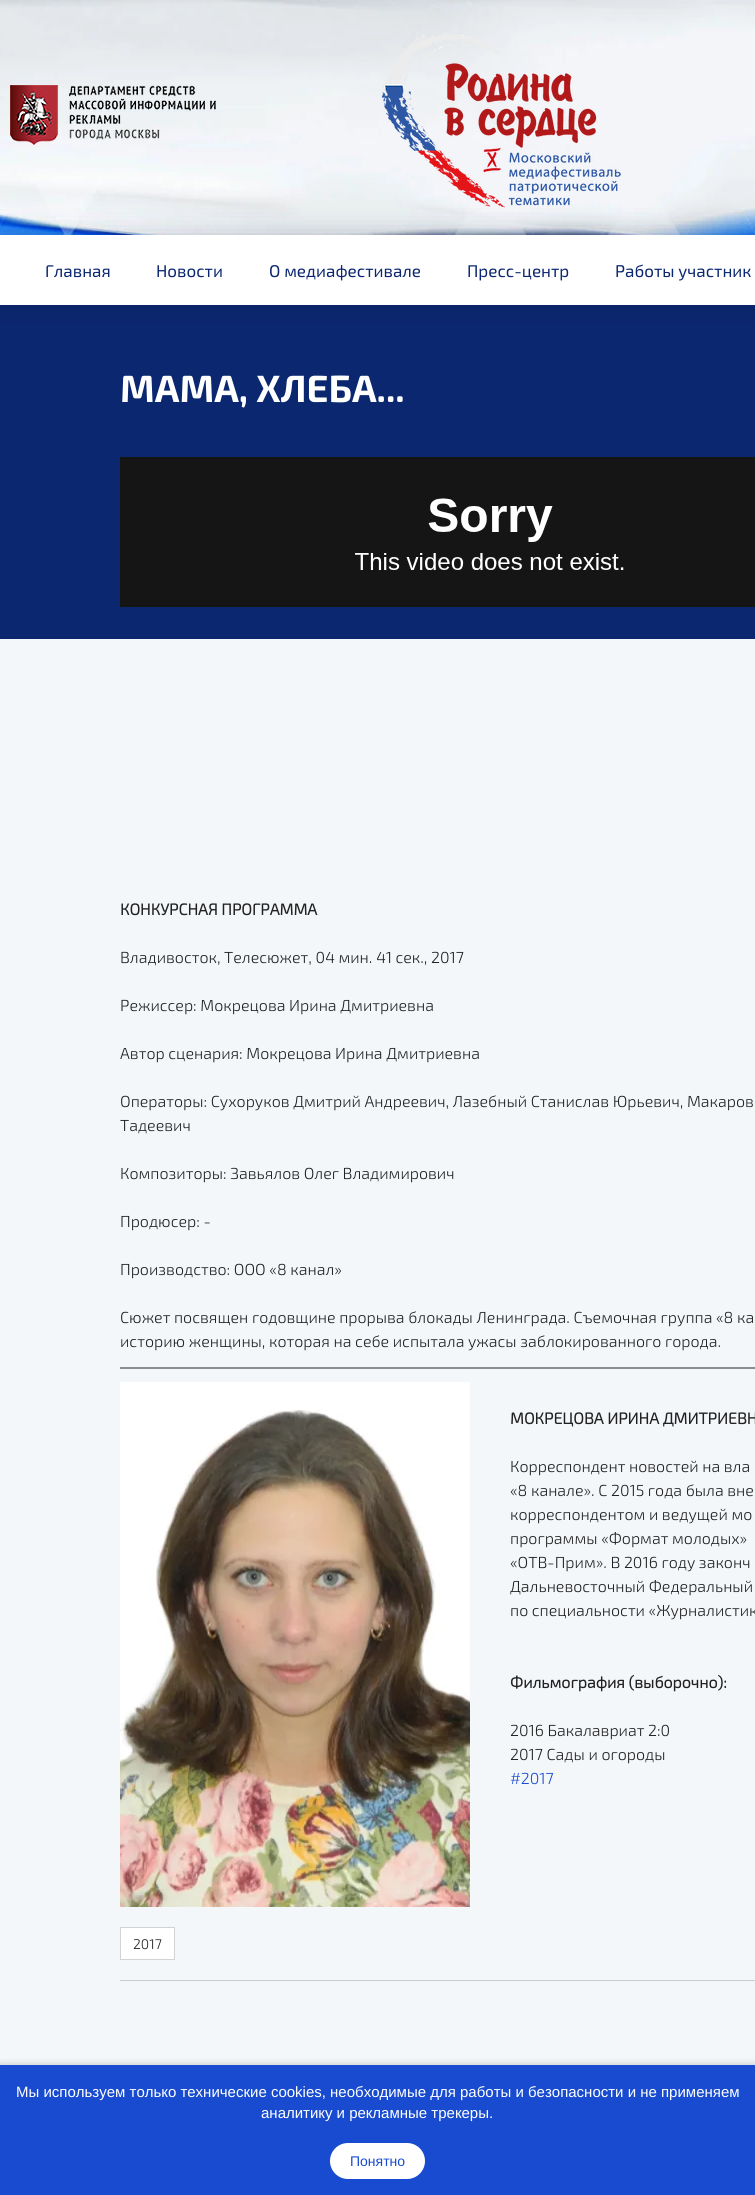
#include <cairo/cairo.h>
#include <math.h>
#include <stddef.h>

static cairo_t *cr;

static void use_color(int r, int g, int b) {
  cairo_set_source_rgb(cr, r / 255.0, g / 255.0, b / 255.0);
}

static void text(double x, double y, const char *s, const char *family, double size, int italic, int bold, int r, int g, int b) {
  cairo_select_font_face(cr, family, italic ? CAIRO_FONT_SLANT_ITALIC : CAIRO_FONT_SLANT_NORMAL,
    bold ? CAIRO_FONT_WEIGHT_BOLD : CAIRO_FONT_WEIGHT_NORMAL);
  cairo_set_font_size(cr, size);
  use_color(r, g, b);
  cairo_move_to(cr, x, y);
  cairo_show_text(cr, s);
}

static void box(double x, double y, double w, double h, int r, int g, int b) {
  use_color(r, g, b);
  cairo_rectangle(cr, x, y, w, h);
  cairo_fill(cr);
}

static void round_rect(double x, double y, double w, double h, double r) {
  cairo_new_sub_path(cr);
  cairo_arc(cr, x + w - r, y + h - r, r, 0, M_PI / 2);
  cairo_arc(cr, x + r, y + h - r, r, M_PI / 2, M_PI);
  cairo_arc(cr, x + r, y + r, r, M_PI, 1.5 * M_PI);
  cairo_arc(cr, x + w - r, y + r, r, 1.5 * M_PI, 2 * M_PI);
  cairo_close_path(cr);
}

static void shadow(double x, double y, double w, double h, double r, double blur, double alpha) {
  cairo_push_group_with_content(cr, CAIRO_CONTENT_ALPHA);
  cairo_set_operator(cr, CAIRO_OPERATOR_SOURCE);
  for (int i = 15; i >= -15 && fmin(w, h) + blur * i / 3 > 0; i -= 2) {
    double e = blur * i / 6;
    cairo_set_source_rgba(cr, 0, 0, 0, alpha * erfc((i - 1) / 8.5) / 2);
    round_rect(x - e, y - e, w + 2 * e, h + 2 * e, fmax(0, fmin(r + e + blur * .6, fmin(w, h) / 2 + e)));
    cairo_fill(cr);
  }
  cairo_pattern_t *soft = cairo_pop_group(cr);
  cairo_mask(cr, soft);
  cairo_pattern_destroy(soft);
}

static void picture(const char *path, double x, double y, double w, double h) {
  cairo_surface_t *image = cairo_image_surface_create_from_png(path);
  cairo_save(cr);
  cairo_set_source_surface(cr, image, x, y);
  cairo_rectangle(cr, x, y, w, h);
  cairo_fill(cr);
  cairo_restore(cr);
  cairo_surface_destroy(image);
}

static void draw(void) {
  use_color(255, 255, 255);
  cairo_paint(cr);
  picture("img_01.png", 0, 0, 755, 235);
  picture("img_02.png", 10, 85, 206, 60);
  picture("img_03.png", 382, 34, 239, 174);
  box(0, 305, 755, 334, 11, 39, 112);
  use_color(6, 19, 56);
  shadow(0, 235, 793, 70, 0, 12.5, 0.25);
  box(0, 235, 755, 70, 255, 255, 255);
  picture("img_04.png", 120, 457, 635, 150);
  box(0, 639, 755, 1426, 244, 247, 250);
  cairo_new_path(cr);
  cairo_move_to(cr, 120, 1368);
  cairo_line_to(cr, 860, 1368);
  use_color(33, 33, 33);
  cairo_set_line_width(cr, 1);
  cairo_stroke(cr);
  picture("img_05.png", 120, 1382, 350, 525);
  use_color(255, 255, 255);
  cairo_rectangle(cr, 120.5, 1927.5, 54, 32);
  cairo_fill_preserve(cr);
  use_color(211, 211, 211);
  cairo_stroke(cr);
  box(120, 1980, 635, 1, 202, 204, 207);
  use_color(0, 0, 0);
  shadow(0, 2063, 755, 130, 0, 3, 0.15);
  box(0, 2065, 755, 130, 24, 75, 208);
  use_color(255, 255, 255);
  round_rect(330, 2143, 95, 36, 18);
  cairo_fill(cr);
  text(45, 277, "Главная", "Exo 2", 17, 0, 0, 11, 39, 112);
  text(156, 277, "Новости", "Exo 2", 17, 0, 0, 11, 39, 112);
  text(269, 277, "О медиафестивале", "Exo 2", 17, 0, 0, 11, 39, 112);
  text(467, 277, "Пресс-центр", "Exo 2", 17, 0, 0, 11, 39, 112);
  text(615, 277, "Работы участник", "Exo 2", 17, 0, 0, 11, 39, 112);
  text(120, 402, "МАМА, ХЛЕБА...", "Exo 2", 38, 0, 1, 255, 255, 255);
  text(120, 915, "КОНКУРСНАЯ ПРОГРАММА", "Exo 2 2", 16, 0, 1, 33, 33, 33);
  text(120, 963, "Владивосток, Телесюжет, 04 мин. 41 сек., 2017", "Exo 2 Light", 16, 0, 0, 33, 33, 33);
  text(120, 1011, "Режиссер: Мокрецова Ирина Дмитриевна", "Exo 2 Light", 16, 0, 0, 33, 33, 33);
  text(120, 1059, "Автор сценария: Мокрецова Ирина Дмитриевна", "Exo 2 Light", 16, 0, 0, 33, 33, 33);
  text(120, 1107, "Операторы: Сухоруков Дмитрий Андреевич, Лазебный Станислав Юрьевич, Макаров", "Exo 2 Light", 16, 0, 0, 33, 33, 33);
  text(120, 1131, "Тадеевич", "Exo 2 Light", 16, 0, 0, 33, 33, 33);
  text(120, 1179, "Композиторы: Завьялов Олег Владимирович", "Exo 2 Light", 16, 0, 0, 33, 33, 33);
  text(120, 1227, "Продюсер: -", "Exo 2 Light", 16, 0, 0, 33, 33, 33);
  text(120, 1275, "Производство: ООО «8 канал»", "Exo 2 Light", 16, 0, 0, 33, 33, 33);
  text(120, 1323, "Сюжет посвящен годовщине прорыва блокады Ленинграда. Съемочная группа «8 ка", "Exo 2 Light", 16, 0, 0, 33, 33, 33);
  text(120, 1347, "историю женщины, которая на себе испытала ужасы заблокированного города.", "Exo 2 Light", 16, 0, 0, 33, 33, 33);
  text(510, 1424, "МОКРЕЦОВА ИРИНА ДМИТРИЕВН", "Exo 2 2", 16, 0, 1, 33, 33, 33);
  text(510, 1472, "Корреспондент новостей на вла", "Exo 2 Light", 16, 0, 0, 33, 33, 33);
  text(510, 1496, "«8 канале». С 2015 года была вне", "Exo 2 Light", 16, 0, 0, 33, 33, 33);
  text(510, 1520, "корреспондентом и ведущей мо", "Exo 2 Light", 16, 0, 0, 33, 33, 33);
  text(510, 1544, "программы «Формат молодых»", "Exo 2 Light", 16, 0, 0, 33, 33, 33);
  text(510, 1568, "«ОТВ-Прим». В 2016 году законч", "Exo 2 Light", 16, 0, 0, 33, 33, 33);
  text(510, 1592, "Дальневосточный Федеральный", "Exo 2 Light", 16, 0, 0, 33, 33, 33);
  text(510, 1616, "по специальности «Журналистик", "Exo 2 Light", 16, 0, 0, 33, 33, 33);
  text(510, 1688, "Фильмография (выборочно):", "Exo 2 2", 16, 0, 1, 33, 33, 33);
  text(510, 1736, "2016 Бакалавриат 2:0", "Exo 2 Light", 16, 0, 0, 33, 33, 33);
  text(510, 1760, "2017 Сады и огороды", "Exo 2 Light", 16, 0, 0, 33, 33, 33);
  text(510, 1784, "#2017", "Exo 2 Light", 16, 0, 0, 24, 75, 208);
  text(133, 1949, "2017", "Exo 2 Light", 14, 0, 0, 33, 33, 33);
  text(16, 2097, "Мы используем только технические cookies, необходимые для работы и безопасности и не применяем", "Liberation Sans", 15, 0, 0, 255, 255, 255);
  text(261, 2118, "аналитику и рекламные трекеры.", "Liberation Sans", 15, 0, 0, 255, 255, 255);
  text(350, 2166, "Понятно", "Liberation Sans", 14, 0, 0, 24, 75, 208);
}

int main(void) {
  cairo_surface_t *surface = cairo_image_surface_create(CAIRO_FORMAT_RGB24, 755, 2195);
  cr = cairo_create(surface);
  cairo_font_options_t *options = cairo_font_options_create();
  cairo_font_options_set_hint_metrics(options, CAIRO_HINT_METRICS_OFF);
  cairo_font_options_set_hint_style(options, CAIRO_HINT_STYLE_NONE);
  cairo_set_font_options(cr, options);
  cairo_set_miter_limit(cr, 4);
  draw();
  cairo_surface_write_to_png(surface, "out.png");
  cairo_font_options_destroy(options);
  cairo_destroy(cr);
  cairo_surface_destroy(surface);
  return 0;
}
